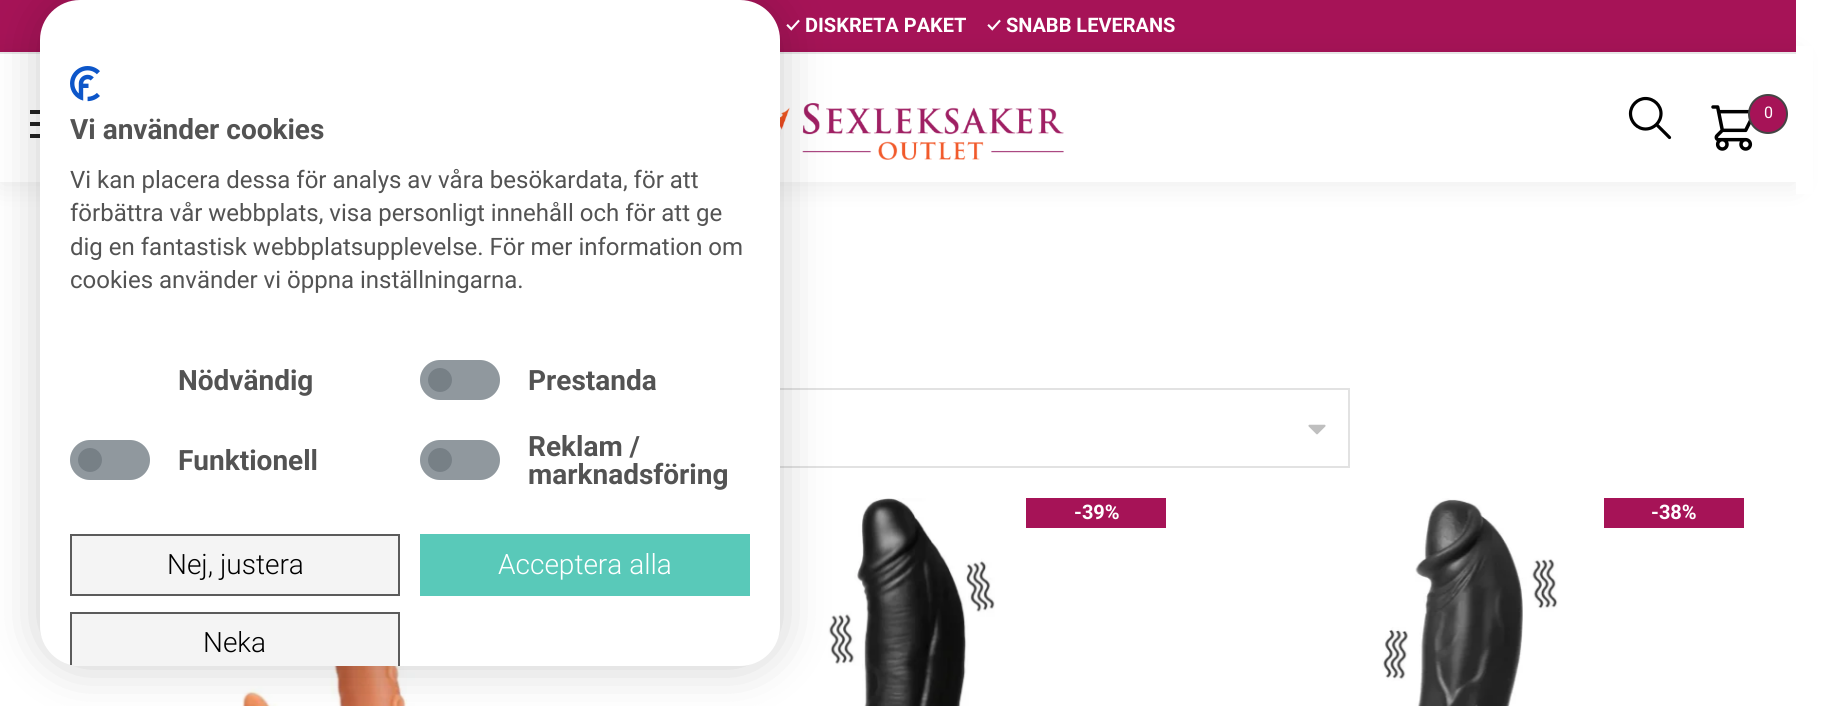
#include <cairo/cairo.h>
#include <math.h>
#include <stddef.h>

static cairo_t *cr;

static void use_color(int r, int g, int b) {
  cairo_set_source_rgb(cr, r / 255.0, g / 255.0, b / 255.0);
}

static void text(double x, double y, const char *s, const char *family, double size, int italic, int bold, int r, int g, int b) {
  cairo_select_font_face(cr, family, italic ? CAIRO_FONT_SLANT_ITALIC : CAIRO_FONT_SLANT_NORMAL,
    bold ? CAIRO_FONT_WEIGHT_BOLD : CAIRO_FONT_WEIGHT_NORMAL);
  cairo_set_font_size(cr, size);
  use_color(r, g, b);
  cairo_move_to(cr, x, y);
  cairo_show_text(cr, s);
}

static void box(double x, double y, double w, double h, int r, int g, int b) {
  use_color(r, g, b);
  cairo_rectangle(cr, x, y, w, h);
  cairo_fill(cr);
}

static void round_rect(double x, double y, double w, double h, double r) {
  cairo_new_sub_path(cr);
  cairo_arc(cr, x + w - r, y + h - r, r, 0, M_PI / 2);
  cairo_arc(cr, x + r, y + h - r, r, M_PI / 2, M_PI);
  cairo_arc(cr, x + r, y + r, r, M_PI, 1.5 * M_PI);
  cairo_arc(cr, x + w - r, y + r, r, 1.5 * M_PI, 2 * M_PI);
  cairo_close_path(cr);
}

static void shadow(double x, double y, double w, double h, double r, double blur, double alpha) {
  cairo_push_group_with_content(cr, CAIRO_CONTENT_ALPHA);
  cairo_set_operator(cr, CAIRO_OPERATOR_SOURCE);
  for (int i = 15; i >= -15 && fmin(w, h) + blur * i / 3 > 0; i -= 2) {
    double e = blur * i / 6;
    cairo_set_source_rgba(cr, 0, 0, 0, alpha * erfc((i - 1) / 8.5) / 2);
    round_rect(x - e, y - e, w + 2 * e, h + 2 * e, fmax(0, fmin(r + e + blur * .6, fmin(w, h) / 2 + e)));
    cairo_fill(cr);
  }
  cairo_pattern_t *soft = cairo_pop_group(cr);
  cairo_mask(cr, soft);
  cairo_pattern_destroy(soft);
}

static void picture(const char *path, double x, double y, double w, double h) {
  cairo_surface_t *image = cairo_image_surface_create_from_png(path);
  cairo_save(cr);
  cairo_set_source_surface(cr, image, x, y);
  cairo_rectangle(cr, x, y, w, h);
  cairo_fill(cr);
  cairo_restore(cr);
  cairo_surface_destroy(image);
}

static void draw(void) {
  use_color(255, 255, 255);
  cairo_paint(cr);
  box(0, 0, 1796, 52, 166, 19, 87);
  box(0, 52, 1796, 2, 238, 238, 238);
  cairo_save(cr);
  cairo_set_fill_rule(cr, CAIRO_FILL_RULE_EVEN_ODD);
  cairo_new_path(cr);
  cairo_move_to(cr, 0, 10);
  cairo_line_to(cr, 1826, 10);
  cairo_line_to(cr, 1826, 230);
  cairo_line_to(cr, 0, 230);
  cairo_close_path(cr);
  cairo_move_to(cr, 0, 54);
  cairo_line_to(cr, 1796, 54);
  cairo_line_to(cr, 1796, 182);
  cairo_line_to(cr, 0, 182);
  cairo_close_path(cr);
  cairo_clip(cr);
  use_color(0, 0, 0);
  shadow(0, 56, 1796, 128, 0, 15, 0.08);
  cairo_restore(cr);
  box(30, 110, 10, 4, 34, 34, 34);
  box(30, 122, 10, 4, 34, 34, 34);
  box(30, 134, 10, 4, 34, 34, 34);
  picture("img_02.png", 780, 103, 284, 57);
  box(780, 388, 570, 2, 226, 226, 226);
  box(1348, 388, 2, 80, 226, 226, 226);
  box(780, 466, 570, 2, 226, 226, 226);
  picture("img_05.png", 828, 498, 167, 208);
  picture("img_07.png", 242, 666, 173, 40);
  use_color(0, 0, 0);
  shadow(40, 0, 740, 666, 40, 24, 0.2);
  use_color(255, 255, 255);
  round_rect(40, 0, 740, 666, 40);
  cairo_fill(cr);
  picture("img_01.png", 70, 66, 30, 36);
  use_color(233, 236, 239);
  round_rect(420, 360, 80, 40, 20);
  cairo_fill(cr);
  use_color(146, 153, 159);
  cairo_arc(cr, 440, 380, 12, 0, 2 * M_PI);
  cairo_fill(cr);
  cairo_set_source_rgba(cr, 0.424, 0.459, 0.49, 0.7);
  cairo_new_path(cr);
  cairo_move_to(cr, 440, 360);
  cairo_line_to(cr, 480, 360);
  cairo_curve_to(cr, 491, 360, 500, 369, 500, 380);
  cairo_curve_to(cr, 500, 391, 491, 400, 480, 400);
  cairo_line_to(cr, 440, 400);
  cairo_curve_to(cr, 429, 400, 420, 391, 420, 380);
  cairo_curve_to(cr, 420, 369, 429, 360, 440, 360);
  cairo_close_path(cr);
  cairo_fill(cr);
  use_color(233, 236, 239);
  round_rect(70, 440, 80, 40, 20);
  cairo_fill(cr);
  use_color(146, 153, 159);
  cairo_arc(cr, 90, 460, 12, 0, 2 * M_PI);
  cairo_fill(cr);
  cairo_set_source_rgba(cr, 0.424, 0.459, 0.49, 0.7);
  cairo_new_path(cr);
  cairo_move_to(cr, 90, 440);
  cairo_line_to(cr, 130, 440);
  cairo_curve_to(cr, 141, 440, 150, 449, 150, 460);
  cairo_curve_to(cr, 150, 471, 141, 480, 130, 480);
  cairo_line_to(cr, 90, 480);
  cairo_curve_to(cr, 79, 480, 70, 471, 70, 460);
  cairo_curve_to(cr, 70, 449, 79, 440, 90, 440);
  cairo_close_path(cr);
  cairo_fill(cr);
  use_color(233, 236, 239);
  round_rect(420, 440, 80, 40, 20);
  cairo_fill(cr);
  use_color(146, 153, 159);
  cairo_arc(cr, 440, 460, 12, 0, 2 * M_PI);
  cairo_fill(cr);
  cairo_set_source_rgba(cr, 0.424, 0.459, 0.49, 0.7);
  cairo_new_path(cr);
  cairo_move_to(cr, 440, 440);
  cairo_line_to(cr, 480, 440);
  cairo_curve_to(cr, 491, 440, 500, 449, 500, 460);
  cairo_curve_to(cr, 500, 471, 491, 480, 480, 480);
  cairo_line_to(cr, 440, 480);
  cairo_curve_to(cr, 429, 480, 420, 471, 420, 460);
  cairo_curve_to(cr, 420, 449, 429, 440, 440, 440);
  cairo_close_path(cr);
  cairo_fill(cr);
  use_color(244, 244, 244);
  cairo_rectangle(cr, 71, 535, 328, 60);
  cairo_fill_preserve(cr);
  use_color(91, 91, 91);
  cairo_stroke(cr);
  box(420, 534, 330, 62, 89, 201, 185);
  cairo_save(cr);
  round_rect(40, 0, 740, 666, 40);
  cairo_clip(cr);
  box(71, 614, 327, 52, 244, 244, 244);
  cairo_restore(cr);
  use_color(91, 91, 91);
  cairo_new_path(cr);
  cairo_move_to(cr, 70, 612);
  cairo_line_to(cr, 70, 665);
  cairo_line_to(cr, 72, 665);
  cairo_line_to(cr, 72, 614);
  cairo_line_to(cr, 398, 614);
  cairo_line_to(cr, 398, 666);
  cairo_line_to(cr, 400, 666);
  cairo_line_to(cr, 400, 612);
  cairo_close_path(cr);
  cairo_fill(cr);
  cairo_new_path(cr);
  cairo_move_to(cr, 1669.5, 137.5);
  cairo_line_to(cr, 1656.5, 124.5);
  cairo_move_to(cr, 1661, 113.5);
  cairo_curve_to(cr, 1661, 122, 1654, 129, 1645.5, 129);
  cairo_curve_to(cr, 1637.5, 129, 1630.5, 122, 1630.5, 113.5);
  cairo_curve_to(cr, 1630.5, 105.5, 1637.5, 98.5, 1645.5, 98.5);
  cairo_curve_to(cr, 1654, 98.5, 1661, 105.5, 1661, 113.5);
  cairo_close_path(cr);
  use_color(0, 0, 0);
  cairo_set_line_width(cr, 3.2);
  cairo_set_line_cap(cr, CAIRO_LINE_CAP_ROUND);
  cairo_set_line_join(cr, CAIRO_LINE_JOIN_ROUND);
  cairo_stroke(cr);
  picture("img_03.png", 1711, 105, 42, 46);
  use_color(166, 19, 87);
  cairo_arc(cr, 1768, 114, 19, 0, 2 * M_PI);
  cairo_fill_preserve(cr);
  use_color(68, 68, 68);
  cairo_set_line_width(cr, 2);
  cairo_set_line_cap(cr, CAIRO_LINE_CAP_BUTT);
  cairo_set_line_join(cr, CAIRO_LINE_JOIN_MITER);
  cairo_stroke(cr);
  box(1796, 46, 17, 148, 255, 255, 255);
  picture("img_04.png", 1308, 424, 18, 11);
  box(1026, 498, 140, 30, 166, 19, 87);
  picture("img_06.png", 1382, 498, 176, 208);
  box(1604, 498, 140, 30, 166, 19, 87);
  text(70, 139, "Vi använder cookies", "Roboto", 28, 0, 1, 83, 83, 83);
  text(70, 188, "Vi kan placera dessa för analys av våra besökardata, för att", "Roboto", 24, 0, 0, 83, 83, 83);
  text(70, 221, "förbättra vår webbplats, visa personligt innehåll och för att ge", "Roboto", 24, 0, 0, 83, 83, 83);
  text(70, 255, "dig en fantastisk webbplatsupplevelse. För mer information om", "Roboto", 24, 0, 0, 83, 83, 83);
  text(70, 288, "cookies använder vi öppna inställningarna.", "Roboto", 24, 0, 0, 83, 83, 83);
  text(178, 390, "Nödvändig", "Roboto", 28, 0, 1, 83, 83, 83);
  text(528, 390, "Prestanda", "Roboto", 28, 0, 1, 83, 83, 83);
  text(178, 470, "Funktionell", "Roboto", 28, 0, 1, 83, 83, 83);
  text(528, 456, "Reklam /", "Roboto", 28, 0, 1, 83, 83, 83);
  text(528, 484, "marknadsföring", "Roboto", 28, 0, 1, 83, 83, 83);
  text(167, 574, "Nej, justera", "Roboto Light", 28, 0, 0, 0, 0, 0);
  text(498, 574, "Acceptera alla", "Roboto Light", 28, 0, 0, 255, 255, 255);
  text(203, 652, "Neka", "Roboto Light", 28, 0, 0, 0, 0, 0);
  text(786, 32, "✓", "Ubuntu", 20, 0, 1, 255, 255, 255);
  text(805, 32, "DISKRETA PAKET", "Roboto", 20, 0, 1, 255, 255, 255);
  text(987, 32, "✓", "Ubuntu", 20, 0, 1, 255, 255, 255);
  text(1006, 32, "SNABB LEVERANS", "Roboto", 20, 0, 1, 255, 255, 255);
  text(1764, 118, "0", "Roboto", 16, 0, 0, 255, 255, 255);
  text(1074, 519, "-39%", "Roboto", 20, 0, 1, 255, 255, 255);
  text(1651, 519, "-38%", "Roboto", 20, 0, 1, 255, 255, 255);
}

int main(void) {
  cairo_surface_t *surface = cairo_image_surface_create(CAIRO_FORMAT_RGB24, 1826, 706);
  cr = cairo_create(surface);
  cairo_font_options_t *options = cairo_font_options_create();
  cairo_font_options_set_hint_metrics(options, CAIRO_HINT_METRICS_OFF);
  cairo_font_options_set_hint_style(options, CAIRO_HINT_STYLE_NONE);
  cairo_set_font_options(cr, options);
  cairo_set_miter_limit(cr, 4);
  draw();
  cairo_surface_write_to_png(surface, "out.png");
  cairo_font_options_destroy(options);
  cairo_destroy(cr);
  cairo_surface_destroy(surface);
  return 0;
}
